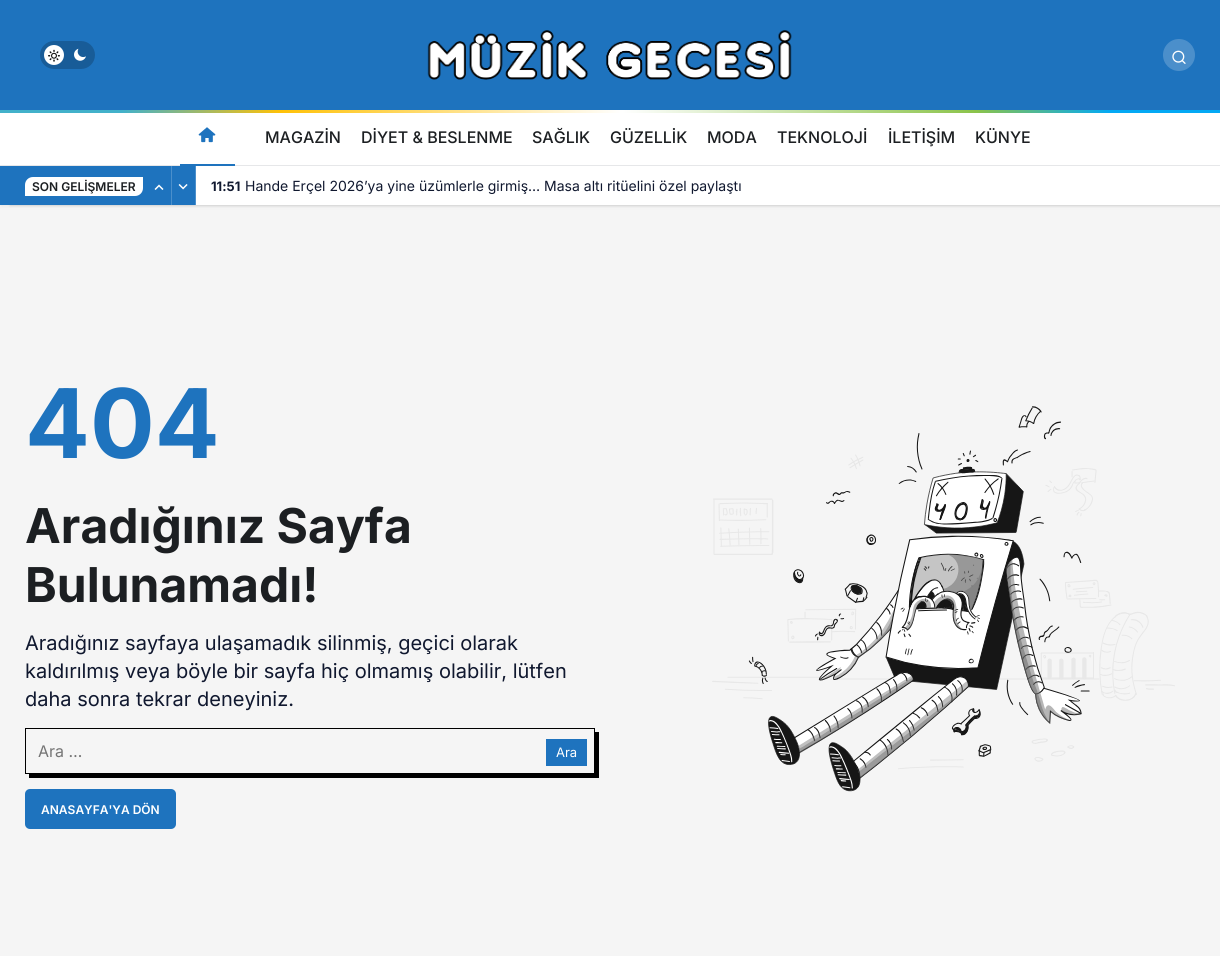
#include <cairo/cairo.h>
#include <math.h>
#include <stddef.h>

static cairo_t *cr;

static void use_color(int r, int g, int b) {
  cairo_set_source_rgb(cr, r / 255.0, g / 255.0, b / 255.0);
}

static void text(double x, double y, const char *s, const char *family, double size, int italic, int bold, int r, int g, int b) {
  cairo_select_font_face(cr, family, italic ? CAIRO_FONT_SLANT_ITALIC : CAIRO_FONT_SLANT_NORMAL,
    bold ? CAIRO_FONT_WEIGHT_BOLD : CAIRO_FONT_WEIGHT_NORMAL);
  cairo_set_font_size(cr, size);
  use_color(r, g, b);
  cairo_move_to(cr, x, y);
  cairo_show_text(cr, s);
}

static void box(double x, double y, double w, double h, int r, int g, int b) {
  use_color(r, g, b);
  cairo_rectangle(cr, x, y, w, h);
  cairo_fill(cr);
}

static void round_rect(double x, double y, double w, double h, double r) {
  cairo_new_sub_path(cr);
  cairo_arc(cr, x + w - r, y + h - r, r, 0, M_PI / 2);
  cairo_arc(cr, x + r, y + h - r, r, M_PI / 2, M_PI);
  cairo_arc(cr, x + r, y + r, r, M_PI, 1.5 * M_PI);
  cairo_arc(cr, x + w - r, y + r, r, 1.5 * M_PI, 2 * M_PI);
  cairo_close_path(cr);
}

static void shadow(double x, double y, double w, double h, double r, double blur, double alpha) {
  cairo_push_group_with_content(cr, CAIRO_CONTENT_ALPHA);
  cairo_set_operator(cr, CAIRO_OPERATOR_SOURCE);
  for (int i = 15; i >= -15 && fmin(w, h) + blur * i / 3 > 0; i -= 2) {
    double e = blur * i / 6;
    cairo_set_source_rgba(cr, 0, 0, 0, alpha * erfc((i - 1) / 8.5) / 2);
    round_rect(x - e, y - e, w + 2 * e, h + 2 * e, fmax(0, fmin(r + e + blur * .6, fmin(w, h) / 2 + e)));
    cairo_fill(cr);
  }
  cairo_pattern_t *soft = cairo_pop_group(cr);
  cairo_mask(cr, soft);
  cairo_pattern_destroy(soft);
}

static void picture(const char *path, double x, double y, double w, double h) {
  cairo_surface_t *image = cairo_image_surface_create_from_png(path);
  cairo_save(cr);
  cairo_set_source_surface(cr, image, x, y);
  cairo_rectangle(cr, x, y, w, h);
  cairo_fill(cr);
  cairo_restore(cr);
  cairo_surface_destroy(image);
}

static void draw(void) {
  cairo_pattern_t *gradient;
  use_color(245, 245, 245);
  cairo_paint(cr);
  box(0, 0, 1220, 110, 30, 115, 190);
  use_color(24, 92, 152);
  round_rect(40, 41, 55, 28, 14);
  cairo_fill(cr);
  use_color(255, 255, 255);
  cairo_arc(cr, 54, 55, 10, 0, 2 * M_PI);
  cairo_fill(cr);
  picture("img_01.png", 48, 49, 12, 13);
  picture("img_02.png", 74, 48, 12, 13);
  picture("img_03.png", 427, 30, 365, 50);
  use_color(75, 143, 203);
  cairo_arc(cr, 1179, 55, 16, 0, 2 * M_PI);
  cairo_fill(cr);
  picture("img_04.png", 1172, 50, 14, 14);
  use_color(0, 0, 0);
  shadow(10, 166, 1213, 40, 0, 1, 0.1);
  shadow(1, 165, 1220, 40, 0, 2.5, 0.1);
  box(0, 113, 1220, 52, 255, 255, 255);
  gradient = cairo_pattern_create_linear(0, 112, 1220, 111);
  cairo_pattern_add_color_stop_rgba(gradient, 0.1, 0.259, 0.694, 0.792, 1);
  cairo_pattern_add_color_stop_rgba(gradient, 0.23, 1, 0.757, 0.027, 1);
  cairo_pattern_add_color_stop_rgba(gradient, 0.51, 1, 1, 1, 1);
  cairo_pattern_add_color_stop_rgba(gradient, 0.8, 0.545, 0.765, 0.29, 1);
  cairo_pattern_add_color_stop_rgba(gradient, 0.91, 0.012, 0.663, 0.957, 1);
  cairo_set_source(cr, gradient);
  cairo_pattern_destroy(gradient);
  cairo_rectangle(cr, 0, 110, 1220, 3);
  cairo_fill(cr);
  picture("img_05.png", 198, 127, 18, 16);
  box(0, 165, 1220, 1, 230, 231, 233);
  box(180, 164, 55, 2, 30, 115, 190);
  box(196, 166, 1024, 39, 255, 255, 255);
  box(0, 166, 171, 39, 30, 115, 190);
  use_color(255, 255, 255);
  cairo_new_path(cr);
  cairo_move_to(cr, 33, 177);
  cairo_line_to(cr, 143, 177);
  cairo_line_to(cr, 143, 188);
  cairo_curve_to(cr, 143, 192.5, 139.5, 196, 135, 196);
  cairo_line_to(cr, 25, 196);
  cairo_line_to(cr, 25, 185);
  cairo_curve_to(cr, 25, 180.5, 28.5, 177, 33, 177);
  cairo_close_path(cr);
  cairo_fill(cr);
  box(171, 166, 1, 39, 75, 143, 203);
  picture("img_06.png", 154, 184, 10, 6);
  box(172, 166, 23, 39, 30, 115, 190);
  box(195, 166, 1, 39, 75, 143, 203);
  picture("img_07.png", 178, 184, 10, 6);
  use_color(0, 0, 0);
  cairo_new_path(cr);
  cairo_move_to(cr, 29, 774);
  cairo_line_to(cr, 29, 778);
  cairo_line_to(cr, 599, 778);
  cairo_line_to(cr, 599, 732);
  cairo_line_to(cr, 595, 732);
  cairo_line_to(cr, 595, 774);
  cairo_close_path(cr);
  cairo_fill(cr);
  cairo_rectangle(cr, 25.5, 728.5, 569, 45);
  cairo_set_line_width(cr, 1);
  cairo_stroke(cr);
  box(546, 739, 41, 27, 30, 115, 190);
  round_rect(25, 789, 151, 40, 5);
  cairo_fill(cr);
  picture("img_08.png", 712, 406, 463, 386);
  text(265, 143, "MAGAZİN", "Inter Medium", 16, 0, 0, 28, 31, 34);
  text(361, 143, "DİYET & BESLENME", "Inter Medium", 16, 0, 0, 28, 31, 34);
  text(532, 143, "SAĞLIK", "Inter Medium", 16, 0, 0, 28, 31, 34);
  text(610, 143, "GÜZELLİK", "Inter Medium", 16, 0, 0, 28, 31, 34);
  text(707, 143, "MODA", "Inter Medium", 16, 0, 0, 28, 31, 34);
  text(777, 143, "TEKNOLOJİ", "Inter Medium", 16, 0, 0, 28, 31, 34);
  text(888, 143, "İLETİŞİM", "Inter Medium", 16, 0, 0, 28, 31, 34);
  text(975, 143, "KÜNYE", "Inter Medium", 16, 0, 0, 28, 31, 34);
  text(32, 191, "SON GELİŞMELER", "Inter SemiBold", 12, 0, 0, 28, 31, 34);
  text(211, 191, "11:51", "Inter", 13, 0, 1, 16, 24, 47);
  text(245, 191, "Hande Erçel 2026’ya yine üzümlerle girmiş… Masa altı ritüelini özel paylaştı", "Inter", 14, 0, 0, 16, 24, 47);
  text(25, 458, "404", "Inter", 96, 0, 1, 30, 115, 190);
  text(25, 543, "Aradığınız Sayfa", "Inter", 48, 0, 1, 28, 31, 34);
  text(25, 602, "Bulunamadı!", "Inter", 48, 0, 1, 28, 31, 34);
  text(25, 650, "Aradığınız sayfaya ulaşamadık silinmiş, geçici olarak", "Inter", 20, 0, 0, 16, 24, 47);
  text(25, 678, "kaldırılmış veya böyle bir sayfa hiç olmamış olabilir, lütfen", "Inter", 20, 0, 0, 16, 24, 47);
  text(25, 706, "daha sonra tekrar deneyiniz.", "Inter", 20, 0, 0, 16, 24, 47);
  text(38, 757, "Ara …", "Inter", 16, 0, 0, 117, 117, 117);
  text(556, 757, "Ara", "Inter", 13, 0, 0, 255, 255, 255);
  text(41, 814, "ANASAYFA'YA DÖN", "Inter SemiBold", 12, 0, 0, 255, 255, 255);
}

int main(void) {
  cairo_surface_t *surface = cairo_image_surface_create(CAIRO_FORMAT_RGB24, 1220, 956);
  cr = cairo_create(surface);
  cairo_font_options_t *options = cairo_font_options_create();
  cairo_font_options_set_hint_metrics(options, CAIRO_HINT_METRICS_OFF);
  cairo_font_options_set_hint_style(options, CAIRO_HINT_STYLE_NONE);
  cairo_set_font_options(cr, options);
  cairo_set_miter_limit(cr, 4);
  draw();
  cairo_surface_write_to_png(surface, "out.png");
  cairo_font_options_destroy(options);
  cairo_destroy(cr);
  cairo_surface_destroy(surface);
  return 0;
}
